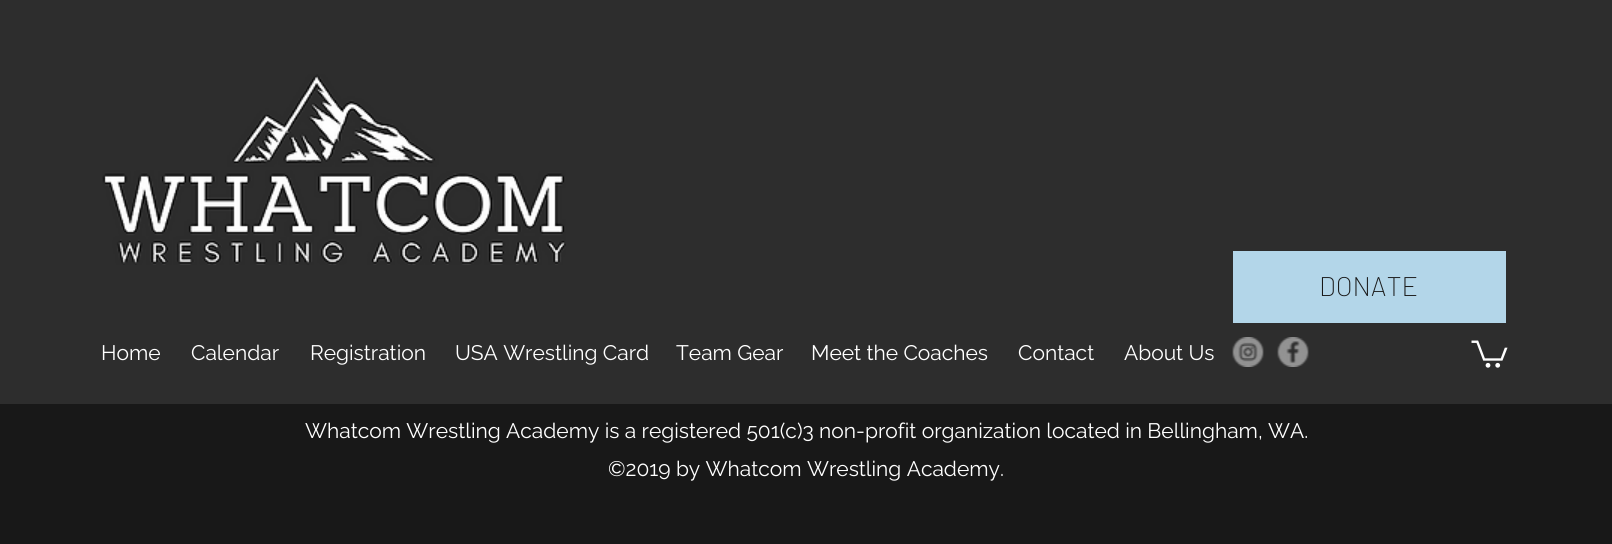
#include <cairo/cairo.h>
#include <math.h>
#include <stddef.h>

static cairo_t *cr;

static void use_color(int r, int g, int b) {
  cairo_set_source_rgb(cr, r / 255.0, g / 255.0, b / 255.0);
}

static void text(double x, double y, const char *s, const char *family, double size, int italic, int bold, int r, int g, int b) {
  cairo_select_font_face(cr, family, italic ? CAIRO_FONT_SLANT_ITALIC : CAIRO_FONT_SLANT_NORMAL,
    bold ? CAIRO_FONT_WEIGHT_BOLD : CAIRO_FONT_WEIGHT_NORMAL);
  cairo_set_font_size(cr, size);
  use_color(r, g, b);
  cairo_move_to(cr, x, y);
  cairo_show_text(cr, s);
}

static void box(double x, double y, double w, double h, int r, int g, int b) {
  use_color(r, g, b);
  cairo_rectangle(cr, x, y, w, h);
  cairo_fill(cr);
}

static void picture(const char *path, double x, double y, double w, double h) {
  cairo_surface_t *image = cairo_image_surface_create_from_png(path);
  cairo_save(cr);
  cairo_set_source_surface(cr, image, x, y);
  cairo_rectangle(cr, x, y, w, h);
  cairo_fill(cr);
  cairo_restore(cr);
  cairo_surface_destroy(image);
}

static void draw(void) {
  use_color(24, 24, 24);
  cairo_paint(cr);
  box(0, 0, 1612, 404, 45, 45, 45);
  picture("img_01.png", 102, 74, 464, 191);
  box(1233, 251, 273, 72, 179, 214, 233);
  picture("img_02.png", 1232, 337, 32, 30);
  picture("img_03.png", 1277, 337, 32, 30);
  picture("img_04.png", 1471, 340, 37, 28);
  text(1319, 296, "DONATE", "Barlow ExtraLight", 27, 0, 0, 24, 24, 24);
  text(101, 360, "Home", "Raleway", 21, 0, 0, 255, 255, 255);
  text(191, 360, "Calendar", "Raleway", 21, 0, 0, 255, 255, 255);
  text(310, 360, "Registration", "Raleway", 21, 0, 0, 255, 255, 255);
  text(455, 360, "USA Wrestling Card", "Raleway", 21, 0, 0, 255, 255, 255);
  text(676, 360, "Team Gear", "Raleway", 21, 0, 0, 255, 255, 255);
  text(811, 360, "Meet the Coaches", "Raleway", 21, 0, 0, 255, 255, 255);
  text(1018, 360, "Contact", "Raleway", 21, 0, 0, 255, 255, 255);
  text(1124, 360, "About Us", "Raleway", 21, 0, 0, 255, 255, 255);
  text(305, 438, "Whatcom Wrestling Academy is a registered 501(c)3 non-profit organization located in Bellingham, WA.", "Raleway", 21, 0, 0, 255, 255, 255);
  text(608, 476, "©2019 by Whatcom Wrestling Academy.", "Raleway", 21, 0, 0, 255, 255, 255);
}

int main(void) {
  cairo_surface_t *surface = cairo_image_surface_create(CAIRO_FORMAT_RGB24, 1612, 544);
  cr = cairo_create(surface);
  cairo_font_options_t *options = cairo_font_options_create();
  cairo_font_options_set_hint_metrics(options, CAIRO_HINT_METRICS_OFF);
  cairo_font_options_set_hint_style(options, CAIRO_HINT_STYLE_NONE);
  cairo_set_font_options(cr, options);
  cairo_set_miter_limit(cr, 4);
  draw();
  cairo_surface_write_to_png(surface, "out.png");
  cairo_font_options_destroy(options);
  cairo_destroy(cr);
  cairo_surface_destroy(surface);
  return 0;
}
